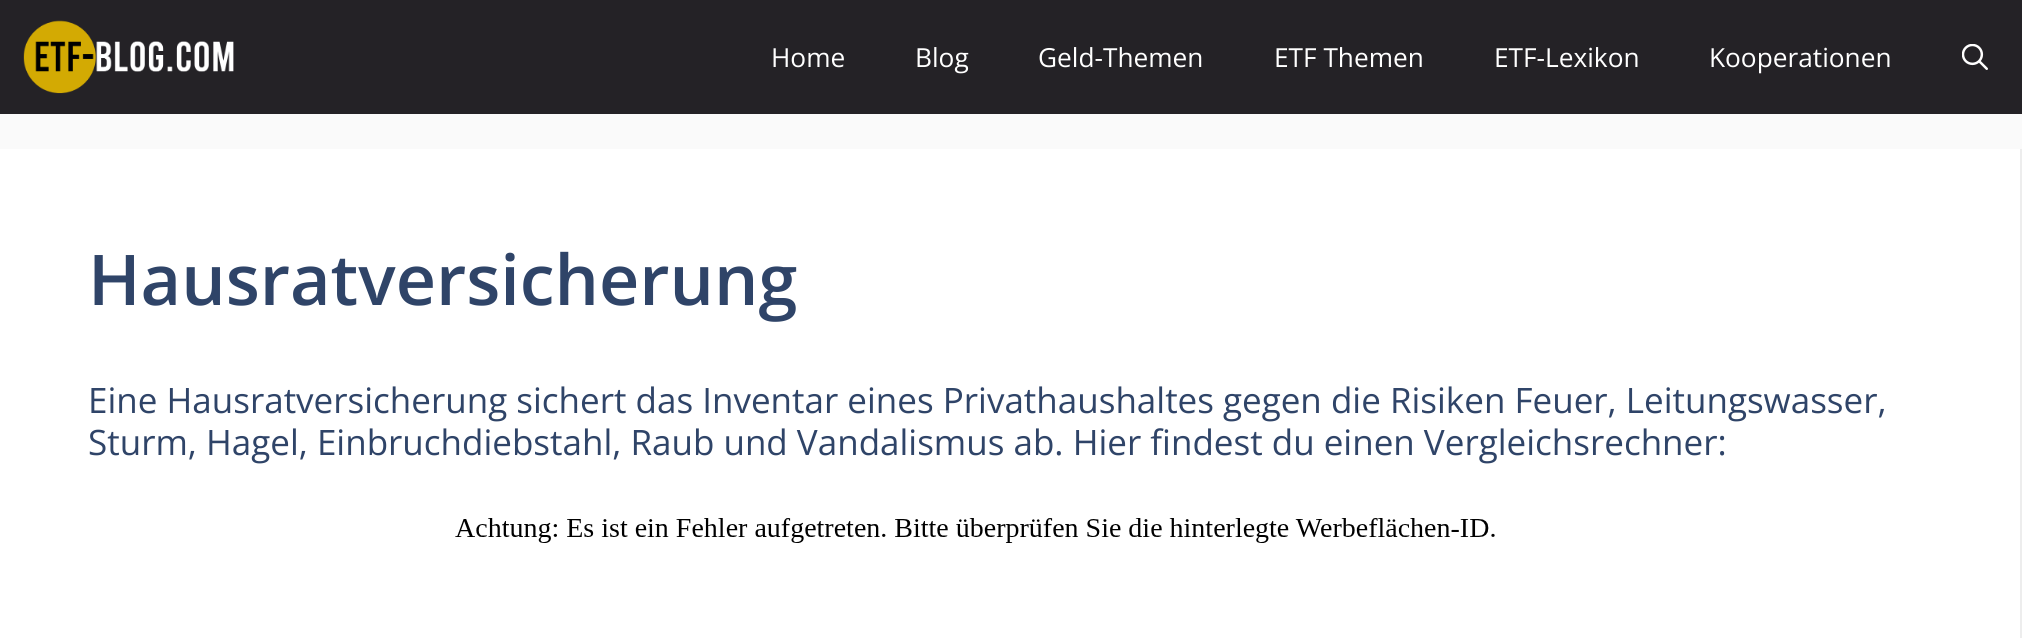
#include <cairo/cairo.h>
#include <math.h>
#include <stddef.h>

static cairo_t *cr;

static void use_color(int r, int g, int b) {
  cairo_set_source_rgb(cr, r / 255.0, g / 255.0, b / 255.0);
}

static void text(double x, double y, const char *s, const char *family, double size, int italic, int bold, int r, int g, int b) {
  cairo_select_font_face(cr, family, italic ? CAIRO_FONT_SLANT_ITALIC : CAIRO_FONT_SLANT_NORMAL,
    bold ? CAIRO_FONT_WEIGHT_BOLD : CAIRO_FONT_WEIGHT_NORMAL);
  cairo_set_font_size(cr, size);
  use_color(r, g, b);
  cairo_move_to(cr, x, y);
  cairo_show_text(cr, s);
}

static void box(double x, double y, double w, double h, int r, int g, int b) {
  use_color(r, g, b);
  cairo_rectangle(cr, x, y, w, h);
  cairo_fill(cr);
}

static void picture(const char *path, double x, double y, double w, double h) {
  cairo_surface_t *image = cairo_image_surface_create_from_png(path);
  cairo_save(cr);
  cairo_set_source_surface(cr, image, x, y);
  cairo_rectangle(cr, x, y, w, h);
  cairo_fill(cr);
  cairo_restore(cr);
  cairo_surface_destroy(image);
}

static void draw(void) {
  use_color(250, 250, 250);
  cairo_paint(cr);
  box(0, 0, 2022, 114, 36, 34, 38);
  picture("img_01.png", 23, 20, 211, 74);
  picture("img_02.png", 1962, 44, 26, 26);
  box(0, 149, 2020, 489, 255, 255, 255);
  use_color(237, 237, 237);
  cairo_new_path(cr);
  cairo_move_to(cr, 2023, 149);
  cairo_line_to(cr, 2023, 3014);
  cairo_line_to(cr, 2020, 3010);
  cairo_line_to(cr, 2020, 149);
  cairo_close_path(cr);
  cairo_fill(cr);
  picture("img_03.png", 455, 518, 1040, 25);
  text(771, 67, "Home", "Open Sans", 26.25, 0, 0, 255, 255, 255);
  text(915, 67, "Blog", "Open Sans", 26.25, 0, 0, 255, 255, 255);
  text(1038, 67, "Geld-Themen", "Open Sans", 26.25, 0, 0, 255, 255, 255);
  text(1274, 67, "ETF Themen", "Open Sans", 26.25, 0, 0, 255, 255, 255);
  text(1494, 67, "ETF-Lexikon", "Open Sans", 26.25, 0, 0, 255, 255, 255);
  text(1709, 67, "Kooperationen", "Open Sans", 26.25, 0, 0, 255, 255, 255);
  text(88, 305, "Hausratversicherung", "Open Sans SemiBold", 70, 0, 0, 47, 68, 104);
  text(88, 413, "Eine Hausratversicherung sichert das Inventar eines Privathaushaltes gegen die Risiken Feuer, Leitungswasser,", "Open Sans", 35, 0, 0, 47, 68, 104);
  text(88, 455, "Sturm, Hagel, Einbruchdiebstahl, Raub und Vandalismus ab. Hier findest du einen Vergleichsrechner:", "Open Sans", 35, 0, 0, 47, 68, 104);
}

int main(void) {
  cairo_surface_t *surface = cairo_image_surface_create(CAIRO_FORMAT_RGB24, 2022, 638);
  cr = cairo_create(surface);
  cairo_font_options_t *options = cairo_font_options_create();
  cairo_font_options_set_hint_metrics(options, CAIRO_HINT_METRICS_OFF);
  cairo_font_options_set_hint_style(options, CAIRO_HINT_STYLE_NONE);
  cairo_set_font_options(cr, options);
  cairo_set_miter_limit(cr, 4);
  draw();
  cairo_surface_write_to_png(surface, "out.png");
  cairo_font_options_destroy(options);
  cairo_destroy(cr);
  cairo_surface_destroy(surface);
  return 0;
}
